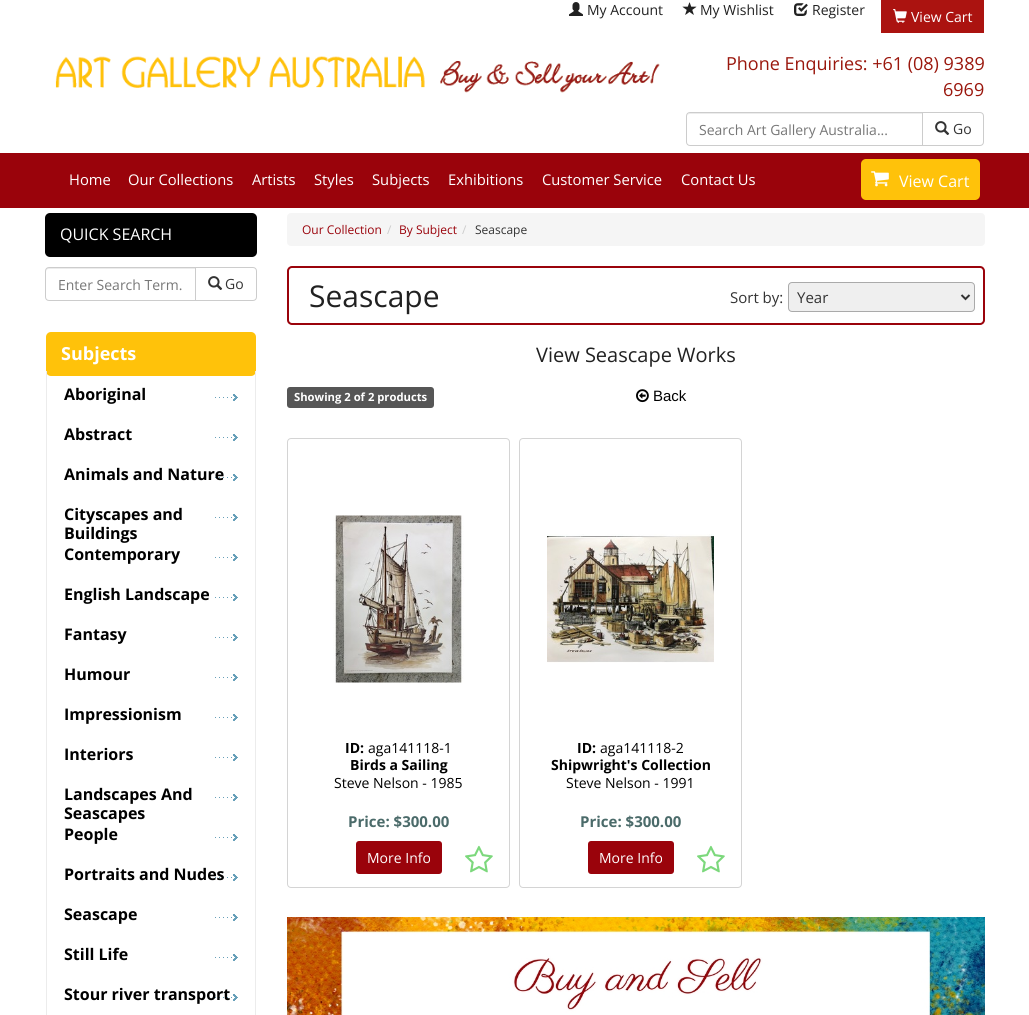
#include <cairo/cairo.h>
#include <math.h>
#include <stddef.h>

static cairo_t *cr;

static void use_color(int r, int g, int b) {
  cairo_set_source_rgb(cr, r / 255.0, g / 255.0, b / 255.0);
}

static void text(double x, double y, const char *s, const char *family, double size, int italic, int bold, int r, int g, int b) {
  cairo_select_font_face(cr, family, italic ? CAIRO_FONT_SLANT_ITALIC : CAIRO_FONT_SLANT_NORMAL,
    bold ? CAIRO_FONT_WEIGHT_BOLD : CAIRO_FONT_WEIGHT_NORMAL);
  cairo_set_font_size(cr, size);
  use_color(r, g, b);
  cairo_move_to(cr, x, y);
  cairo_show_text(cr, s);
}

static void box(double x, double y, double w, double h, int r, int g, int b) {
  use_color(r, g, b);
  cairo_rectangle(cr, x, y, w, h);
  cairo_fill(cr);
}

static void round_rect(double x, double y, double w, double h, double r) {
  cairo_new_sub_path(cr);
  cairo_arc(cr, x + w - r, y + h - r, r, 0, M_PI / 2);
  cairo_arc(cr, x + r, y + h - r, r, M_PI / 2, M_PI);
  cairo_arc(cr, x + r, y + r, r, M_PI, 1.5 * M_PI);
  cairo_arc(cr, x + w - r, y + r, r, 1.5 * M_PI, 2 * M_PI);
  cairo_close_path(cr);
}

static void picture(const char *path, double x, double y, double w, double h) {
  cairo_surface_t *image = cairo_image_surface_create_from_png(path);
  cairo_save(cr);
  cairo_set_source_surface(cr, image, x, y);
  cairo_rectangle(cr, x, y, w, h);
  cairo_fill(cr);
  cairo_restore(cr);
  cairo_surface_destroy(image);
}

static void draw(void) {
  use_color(255, 255, 255);
  cairo_paint(cr);
  picture("img_01.png", 569, 2, 14, 14);
  picture("img_02.png", 682, 2, 15, 13);
  picture("img_03.png", 794, 3, 14, 13);
  box(881, 0, 103, 33, 171, 19, 16);
  picture("img_04.png", 893, 9, 14, 14);
  picture("img_05.png", 55, 56, 605, 37);
  cairo_new_path(cr);
  cairo_move_to(cr, 922.5, 112.5);
  cairo_line_to(cr, 980, 112.5);
  cairo_curve_to(cr, 982, 112.5, 983.5, 114, 983.5, 116);
  cairo_line_to(cr, 983.5, 142);
  cairo_curve_to(cr, 983.5, 144, 982, 145.5, 980, 145.5);
  cairo_line_to(cr, 922.5, 145.5);
  cairo_close_path(cr);
  use_color(204, 204, 204);
  cairo_set_line_width(cr, 1);
  cairo_stroke(cr);
  use_color(255, 255, 255);
  cairo_new_path(cr);
  cairo_move_to(cr, 690, 112);
  cairo_line_to(cr, 923, 112);
  cairo_line_to(cr, 923, 146);
  cairo_line_to(cr, 690, 146);
  cairo_curve_to(cr, 688, 146, 686, 144, 686, 142);
  cairo_line_to(cr, 686, 116);
  cairo_curve_to(cr, 686, 114, 688, 112, 690, 112);
  cairo_close_path(cr);
  cairo_fill(cr);
  use_color(236, 236, 236);
  cairo_new_path(cr);
  cairo_move_to(cr, 690, 114);
  cairo_line_to(cr, 922, 114);
  cairo_line_to(cr, 922, 113);
  cairo_line_to(cr, 690, 113);
  cairo_curve_to(cr, 688, 113, 687, 115, 687, 117);
  cairo_curve_to(cr, 687, 115, 688, 114, 690, 114);
  cairo_close_path(cr);
  cairo_fill(cr);
  cairo_new_path(cr);
  cairo_move_to(cr, 690, 112.5);
  cairo_line_to(cr, 922.5, 112.5);
  cairo_line_to(cr, 922.5, 145.5);
  cairo_line_to(cr, 690, 145.5);
  cairo_curve_to(cr, 688, 145.5, 686.5, 144, 686.5, 142);
  cairo_line_to(cr, 686.5, 116);
  cairo_curve_to(cr, 686.5, 114, 688, 112.5, 690, 112.5);
  cairo_close_path(cr);
  use_color(204, 204, 204);
  cairo_stroke(cr);
  picture("img_06.png", 935, 121, 15, 14);
  box(0, 153, 1029, 55, 154, 3, 11);
  use_color(255, 194, 10);
  round_rect(861, 159, 119, 41, 5);
  cairo_fill(cr);
  picture("img_07.png", 871, 171, 18, 16);
  use_color(0, 0, 0);
  round_rect(45, 213, 212, 44, 5);
  cairo_fill(cr);
  cairo_new_path(cr);
  cairo_move_to(cr, 195.5, 267.5);
  cairo_line_to(cr, 253, 267.5);
  cairo_curve_to(cr, 255, 267.5, 256.5, 269, 256.5, 271);
  cairo_line_to(cr, 256.5, 297);
  cairo_curve_to(cr, 256.5, 299, 255, 300.5, 253, 300.5);
  cairo_line_to(cr, 195.5, 300.5);
  cairo_close_path(cr);
  use_color(204, 204, 204);
  cairo_stroke(cr);
  use_color(255, 255, 255);
  cairo_new_path(cr);
  cairo_move_to(cr, 49, 267);
  cairo_line_to(cr, 196, 267);
  cairo_line_to(cr, 196, 301);
  cairo_line_to(cr, 49, 301);
  cairo_curve_to(cr, 47, 301, 45, 299, 45, 297);
  cairo_line_to(cr, 45, 271);
  cairo_curve_to(cr, 45, 269, 47, 267, 49, 267);
  cairo_close_path(cr);
  cairo_fill(cr);
  use_color(236, 236, 236);
  cairo_new_path(cr);
  cairo_move_to(cr, 49, 269);
  cairo_line_to(cr, 195, 269);
  cairo_line_to(cr, 195, 268);
  cairo_line_to(cr, 48, 268);
  cairo_curve_to(cr, 46, 268, 46, 270, 46, 272);
  cairo_curve_to(cr, 46, 270, 47, 269, 49, 269);
  cairo_close_path(cr);
  cairo_fill(cr);
  cairo_new_path(cr);
  cairo_move_to(cr, 49, 267.5);
  cairo_line_to(cr, 195.5, 267.5);
  cairo_line_to(cr, 195.5, 300.5);
  cairo_line_to(cr, 49, 300.5);
  cairo_curve_to(cr, 47, 300.5, 45.5, 299, 45.5, 297);
  cairo_line_to(cr, 45.5, 271);
  cairo_curve_to(cr, 45.5, 269, 47, 267.5, 49, 267.5);
  cairo_close_path(cr);
  use_color(204, 204, 204);
  cairo_stroke(cr);
  picture("img_06.png", 208, 276, 15, 14);
  use_color(255, 194, 10);
  round_rect(46, 332, 210, 44, 5);
  cairo_fill(cr);
  use_color(236, 236, 236);
  cairo_set_fill_rule(cr, CAIRO_FILL_RULE_EVEN_ODD);
  cairo_new_path(cr);
  cairo_move_to(cr, 46, 371);
  cairo_line_to(cr, 256, 371);
  cairo_line_to(cr, 256, 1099);
  cairo_curve_to(cr, 256, 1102, 254, 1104, 251, 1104);
  cairo_line_to(cr, 51, 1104);
  cairo_curve_to(cr, 48, 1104, 46, 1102, 46, 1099);
  cairo_close_path(cr);
  cairo_move_to(cr, 47, 371);
  cairo_line_to(cr, 255, 371);
  cairo_line_to(cr, 255, 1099);
  cairo_curve_to(cr, 255, 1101, 253, 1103, 251, 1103);
  cairo_line_to(cr, 51, 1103);
  cairo_curve_to(cr, 49, 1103, 47, 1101, 47, 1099);
  cairo_close_path(cr);
  cairo_fill(cr);
  picture("img_08.png", 215, 394, 23, 7);
  picture("img_08.png", 215, 434, 23, 7);
  picture("img_08.png", 215, 474, 23, 7);
  picture("img_08.png", 215, 514, 23, 7);
  picture("img_08.png", 215, 554, 23, 7);
  picture("img_08.png", 215, 594, 23, 7);
  picture("img_08.png", 215, 634, 23, 7);
  picture("img_08.png", 215, 674, 23, 7);
  picture("img_08.png", 215, 714, 23, 7);
  picture("img_08.png", 215, 754, 23, 7);
  picture("img_08.png", 215, 794, 23, 7);
  picture("img_08.png", 215, 834, 23, 7);
  picture("img_08.png", 215, 874, 23, 7);
  picture("img_08.png", 215, 914, 23, 7);
  picture("img_08.png", 215, 954, 23, 7);
  picture("img_08.png", 215, 994, 23, 7);
  use_color(245, 245, 245);
  round_rect(287, 213, 698, 33, 4);
  cairo_fill(cr);
  round_rect(288, 267, 696, 57, 4);
  use_color(154, 3, 11);
  cairo_set_line_width(cr, 2);
  cairo_stroke(cr);
  use_color(239, 239, 239);
  round_rect(788.5, 282.5, 186, 29, 3.5);
  cairo_fill_preserve(cr);
  use_color(170, 170, 170);
  cairo_set_line_width(cr, 1);
  cairo_stroke(cr);
  cairo_new_path(cr);
  cairo_move_to(cr, 961.5, 295);
  cairo_line_to(cr, 965.5, 299);
  cairo_line_to(cr, 969.5, 295);
  use_color(51, 51, 51);
  cairo_set_line_width(cr, 2);
  cairo_stroke(cr);
  use_color(86, 86, 86);
  round_rect(287, 387, 147, 21, 3);
  cairo_fill(cr);
  picture("img_09.png", 636, 389, 13, 14);
  round_rect(287.5, 438.5, 222, 449, 3.5);
  use_color(212, 212, 212);
  cairo_set_line_width(cr, 1);
  cairo_stroke(cr);
  picture("img_10.png", 333, 515, 131, 168);
  use_color(154, 3, 11);
  round_rect(356, 841, 86, 33, 3);
  cairo_fill(cr);
  picture("img_11.png", 465, 845, 28, 28);
  round_rect(519.5, 438.5, 222, 449, 3.5);
  use_color(212, 212, 212);
  cairo_stroke(cr);
  picture("img_12.png", 547, 534, 167, 129);
  use_color(154, 3, 11);
  round_rect(588, 841, 86, 33, 3);
  cairo_fill(cr);
  picture("img_11.png", 697, 845, 28, 28);
  picture("img_13.png", 287, 917, 698, 98);
  text(587, 15, "My Account", "Open Sans", 14, 0, 0, 33, 33, 33);
  text(700, 15, "My Wishlist", "Open Sans", 14, 0, 0, 33, 33, 33);
  text(812, 15, "Register", "Open Sans", 14, 0, 0, 33, 33, 33);
  text(911, 22, "View Cart", "Open Sans", 14, 0, 0, 255, 255, 255);
  text(726, 70, "Phone Enquiries: +61 (08) 9389", "Open Sans", 18, 0, 0, 154, 23, 13);
  text(943, 96, "6969", "Open Sans", 18, 0, 0, 154, 23, 13);
  text(699, 135, "Search Art Gallery Australia...", "Open Sans", 14, 0, 0, 119, 119, 119);
  text(953, 134, "Go", "Open Sans", 14, 0, 0, 51, 51, 51);
  text(69, 185, "Home", "Open Sans", 14.75, 0, 0, 255, 255, 255);
  text(128, 185, "Our Collections", "Open Sans", 14.75, 0, 0, 255, 255, 255);
  text(252, 185, "Artists", "Open Sans", 14.75, 0, 0, 255, 255, 255);
  text(314, 185, "Styles", "Open Sans", 14.75, 0, 0, 255, 255, 255);
  text(372, 185, "Subjects", "Open Sans", 14.75, 0, 0, 255, 255, 255);
  text(448, 185, "Exhibitions", "Open Sans", 14.75, 0, 0, 255, 255, 255);
  text(542, 185, "Customer Service", "Open Sans", 14.75, 0, 0, 255, 255, 255);
  text(681, 185, "Contact Us", "Open Sans", 14.75, 0, 0, 255, 255, 255);
  text(899, 187, "View Cart", "Open Sans", 16, 0, 0, 255, 255, 255);
  text(60, 240, "QUICK SEARCH", "Open Sans", 16, 0, 0, 255, 255, 255);
  text(58, 290, "Enter Search Term.", "Open Sans", 14, 0, 0, 119, 119, 119);
  text(225, 289, "Go", "Open Sans", 14, 0, 0, 51, 51, 51);
  text(61, 360, "Subjects", "Open Sans", 18, 0, 1, 255, 255, 255);
  text(64, 400, "Aboriginal", "Open Sans", 16, 0, 1, 0, 0, 0);
  text(64, 440, "Abstract", "Open Sans", 16, 0, 1, 0, 0, 0);
  text(64, 480, "Animals and Nature", "Open Sans", 16, 0, 1, 0, 0, 0);
  text(64, 520, "Cityscapes and", "Open Sans", 16, 0, 1, 0, 0, 0);
  text(64, 539, "Buildings", "Open Sans", 16, 0, 1, 0, 0, 0);
  text(64, 560, "Contemporary", "Open Sans", 16, 0, 1, 0, 0, 0);
  text(64, 600, "English Landscape", "Open Sans", 16, 0, 1, 0, 0, 0);
  text(64, 640, "Fantasy", "Open Sans", 16, 0, 1, 0, 0, 0);
  text(64, 680, "Humour", "Open Sans", 16, 0, 1, 0, 0, 0);
  text(64, 720, "Impressionism", "Open Sans", 16, 0, 1, 0, 0, 0);
  text(64, 760, "Interiors", "Open Sans", 16, 0, 1, 0, 0, 0);
  text(64, 800, "Landscapes And", "Open Sans", 16, 0, 1, 0, 0, 0);
  text(64, 819, "Seascapes", "Open Sans", 16, 0, 1, 0, 0, 0);
  text(64, 840, "People", "Open Sans", 16, 0, 1, 0, 0, 0);
  text(64, 880, "Portraits and Nudes", "Open Sans", 16, 0, 1, 0, 0, 0);
  text(64, 920, "Seascape", "Open Sans", 16, 0, 1, 0, 0, 0);
  text(64, 960, "Still Life", "Open Sans", 16, 0, 1, 0, 0, 0);
  text(64, 1000, "Stour river transport", "Open Sans", 16, 0, 1, 0, 0, 0);
  text(302, 234, "Our Collection", "Open Sans", 12, 0, 0, 154, 3, 11);
  text(387, 234, "/", "Open Sans", 12, 0, 0, 204, 204, 204);
  text(399, 234, "By Subject", "Open Sans", 12, 0, 0, 154, 3, 11);
  text(462, 234, "/", "Open Sans", 12, 0, 0, 204, 204, 204);
  text(475, 234, "Seascape", "Open Sans", 12, 0, 0, 51, 51, 51);
  text(309, 307, "Seascape", "Open Sans", 30, 0, 0, 33, 33, 33);
  text(730, 303, "Sort by:", "Open Sans", 15, 0, 0, 51, 51, 51);
  text(797, 303, "Year", "Open Sans", 15, 0, 0, 51, 51, 51);
  text(536, 362, "View Seascape Works", "Open Sans", 20, 0, 0, 33, 33, 33);
  text(294, 401, "Showing 2 of 2 products", "Open Sans", 11.25, 0, 1, 255, 255, 255);
  text(653, 401, "Back", "Liberation Sans", 15, 0, 0, 0, 0, 0);
  text(345, 753, "ID:", "Open Sans", 14, 0, 1, 0, 0, 0);
  text(368, 753, "aga141118-1", "Open Sans", 14, 0, 0, 0, 0, 0);
  text(350, 770, "Birds a Sailing", "Open Sans", 14, 0, 1, 0, 0, 0);
  text(334, 788, "Steve Nelson - 1985", "Open Sans", 14, 0, 0, 0, 0, 0);
  text(348, 827, "Price: $300.00", "Open Sans", 15, 0, 1, 75, 107, 106);
  text(367, 863, "More Info", "Open Sans", 14, 0, 0, 255, 255, 255);
  text(577, 753, "ID:", "Open Sans", 14, 0, 1, 0, 0, 0);
  text(600, 753, "aga141118-2", "Open Sans", 14, 0, 0, 0, 0, 0);
  text(551, 770, "Shipwright's Collection", "Open Sans", 14, 0, 1, 0, 0, 0);
  text(566, 788, "Steve Nelson - 1991", "Open Sans", 14, 0, 0, 0, 0, 0);
  text(580, 827, "Price: $300.00", "Open Sans", 15, 0, 1, 75, 107, 106);
  text(599, 863, "More Info", "Open Sans", 14, 0, 0, 255, 255, 255);
}

int main(void) {
  cairo_surface_t *surface = cairo_image_surface_create(CAIRO_FORMAT_RGB24, 1029, 1015);
  cr = cairo_create(surface);
  cairo_font_options_t *options = cairo_font_options_create();
  cairo_font_options_set_hint_metrics(options, CAIRO_HINT_METRICS_OFF);
  cairo_font_options_set_hint_style(options, CAIRO_HINT_STYLE_NONE);
  cairo_set_font_options(cr, options);
  cairo_set_miter_limit(cr, 4);
  draw();
  cairo_surface_write_to_png(surface, "out.png");
  cairo_font_options_destroy(options);
  cairo_destroy(cr);
  cairo_surface_destroy(surface);
  return 0;
}
